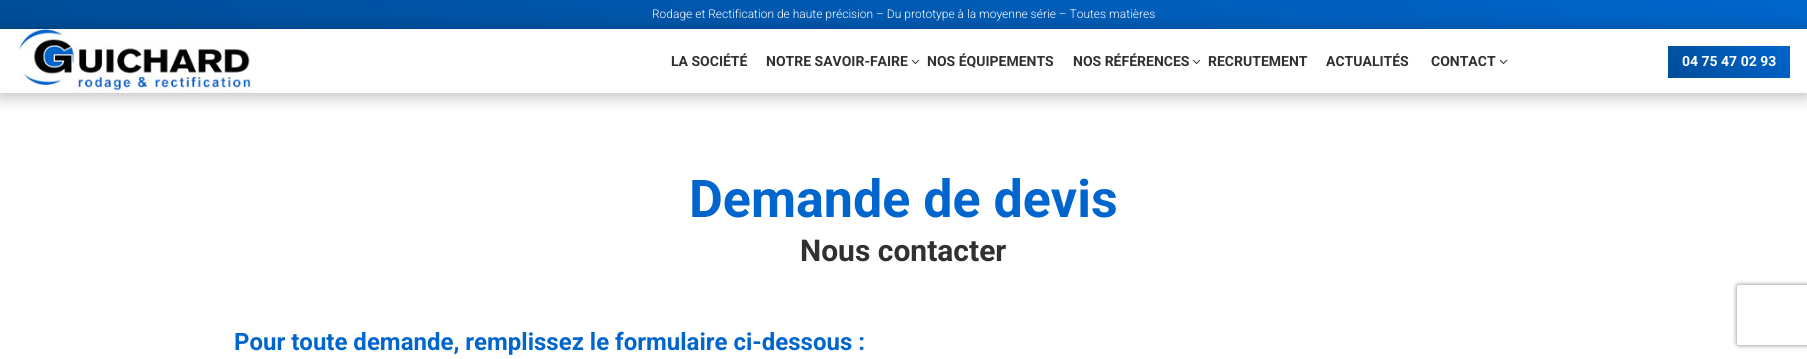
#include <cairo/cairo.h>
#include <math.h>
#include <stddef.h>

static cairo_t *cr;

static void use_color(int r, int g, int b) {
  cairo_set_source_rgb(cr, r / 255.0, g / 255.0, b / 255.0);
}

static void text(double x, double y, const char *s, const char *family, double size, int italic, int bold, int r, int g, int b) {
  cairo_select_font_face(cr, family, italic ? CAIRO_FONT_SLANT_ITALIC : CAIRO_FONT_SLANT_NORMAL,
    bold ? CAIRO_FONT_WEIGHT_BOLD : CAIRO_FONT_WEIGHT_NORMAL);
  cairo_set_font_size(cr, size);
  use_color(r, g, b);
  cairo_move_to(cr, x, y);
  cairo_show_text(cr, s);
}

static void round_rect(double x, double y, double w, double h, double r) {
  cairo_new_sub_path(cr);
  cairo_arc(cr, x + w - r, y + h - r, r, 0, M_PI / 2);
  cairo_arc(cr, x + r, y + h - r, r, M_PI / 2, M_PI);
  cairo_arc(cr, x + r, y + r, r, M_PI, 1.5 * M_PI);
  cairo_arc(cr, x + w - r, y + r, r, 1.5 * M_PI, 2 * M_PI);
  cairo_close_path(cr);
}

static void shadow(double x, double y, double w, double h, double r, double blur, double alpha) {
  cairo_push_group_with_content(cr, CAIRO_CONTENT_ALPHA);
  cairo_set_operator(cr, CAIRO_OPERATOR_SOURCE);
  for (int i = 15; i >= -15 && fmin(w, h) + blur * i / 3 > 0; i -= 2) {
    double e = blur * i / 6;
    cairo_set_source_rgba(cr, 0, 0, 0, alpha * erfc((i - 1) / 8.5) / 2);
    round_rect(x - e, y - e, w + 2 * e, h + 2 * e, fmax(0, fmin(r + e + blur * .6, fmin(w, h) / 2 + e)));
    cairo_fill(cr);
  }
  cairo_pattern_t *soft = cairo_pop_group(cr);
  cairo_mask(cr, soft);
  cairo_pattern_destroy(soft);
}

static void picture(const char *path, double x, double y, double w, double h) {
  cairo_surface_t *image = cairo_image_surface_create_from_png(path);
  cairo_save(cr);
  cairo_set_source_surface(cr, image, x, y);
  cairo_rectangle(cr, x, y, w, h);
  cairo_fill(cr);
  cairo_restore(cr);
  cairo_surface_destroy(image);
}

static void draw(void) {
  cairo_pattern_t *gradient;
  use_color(255, 255, 255);
  cairo_paint(cr);
  gradient = cairo_pattern_create_linear(445, 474, 1363, -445);
  cairo_pattern_add_color_stop_rgba(gradient, 0, 0, 0.302, 0.6, 1);
  cairo_pattern_add_color_stop_rgba(gradient, 1, 0, 0.4, 0.8, 1);
  cairo_set_source(cr, gradient);
  cairo_pattern_destroy(gradient);
  cairo_rectangle(cr, 0, 0, 1807, 29);
  cairo_fill(cr);
  cairo_save(cr);
  cairo_set_fill_rule(cr, CAIRO_FILL_RULE_EVEN_ODD);
  cairo_new_path(cr);
  cairo_move_to(cr, 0, 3);
  cairo_line_to(cr, 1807, 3);
  cairo_line_to(cr, 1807, 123);
  cairo_line_to(cr, 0, 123);
  cairo_close_path(cr);
  cairo_move_to(cr, 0, 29);
  cairo_line_to(cr, 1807, 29);
  cairo_line_to(cr, 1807, 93);
  cairo_line_to(cr, 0, 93);
  cairo_close_path(cr);
  cairo_clip(cr);
  use_color(0, 0, 0);
  shadow(0, 31, 1807, 64, 0, 9, 0.3);
  cairo_restore(cr);
  picture("img_01.png", 15, 29, 236, 64);
  picture("img_02.png", 911, 59, 9, 5);
  picture("img_02.png", 1192, 59, 9, 5);
  picture("img_02.png", 1499, 59, 9, 5);
  gradient = cairo_pattern_create_linear(1691, 101, 1768, 24);
  cairo_pattern_add_color_stop_rgba(gradient, 0, 0, 0.302, 0.6, 1);
  cairo_pattern_add_color_stop_rgba(gradient, 1, 0, 0.396, 0.8, 1);
  cairo_set_source(cr, gradient);
  cairo_pattern_destroy(gradient);
  cairo_rectangle(cr, 1668, 46, 122, 32);
  cairo_fill(cr);
  cairo_save(cr);
  cairo_set_fill_rule(cr, CAIRO_FILL_RULE_EVEN_ODD);
  cairo_new_path(cr);
  cairo_move_to(cr, 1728, 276);
  cairo_line_to(cr, 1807, 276);
  cairo_line_to(cr, 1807, 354);
  cairo_line_to(cr, 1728, 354);
  cairo_close_path(cr);
  cairo_move_to(cr, 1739, 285);
  cairo_line_to(cr, 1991, 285);
  cairo_curve_to(cr, 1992, 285, 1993, 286, 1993, 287);
  cairo_line_to(cr, 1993, 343);
  cairo_curve_to(cr, 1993, 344, 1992, 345, 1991, 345);
  cairo_line_to(cr, 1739, 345);
  cairo_curve_to(cr, 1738, 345, 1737, 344, 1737, 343);
  cairo_line_to(cr, 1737, 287);
  cairo_curve_to(cr, 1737, 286, 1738, 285, 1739, 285);
  cairo_close_path(cr);
  cairo_clip(cr);
  use_color(128, 128, 128);
  shadow(1737, 285, 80, 60, 2, 2.5, 1);
  cairo_restore(cr);
  text(652, 18, "Rodage et Rectification de haute précision – Du prototype à la moyenne série – Toutes matières", "Roboto Light", 12, 0, 0, 255, 255, 255);
  text(671, 66, "LA SOCIÉTÉ", "Roboto", 14, 0, 1, 49, 49, 49);
  text(766, 66, "NOTRE SAVOIR-FAIRE", "Roboto", 14, 0, 1, 49, 49, 49);
  text(927, 66, "NOS ÉQUIPEMENTS", "Roboto", 14, 0, 1, 49, 49, 49);
  text(1073, 66, "NOS RÉFÉRENCES", "Roboto", 14, 0, 1, 49, 49, 49);
  text(1208, 66, "RECRUTEMENT", "Roboto", 14, 0, 1, 49, 49, 49);
  text(1326, 66, "ACTUALITÉS", "Roboto", 14, 0, 1, 49, 49, 49);
  text(1431, 66, "CONTACT", "Roboto", 14, 0, 1, 49, 49, 49);
  text(1682, 66, "04 75 47 02 93", "Roboto", 14, 0, 1, 255, 255, 255);
  text(689, 217, "Demande de devis", "Roboto", 52, 0, 1, 0, 101, 204);
  text(800, 261, "Nous contacter", "Roboto", 30, 0, 1, 49, 49, 49);
  text(234, 350, "Pour toute demande, remplissez le formulaire ci-dessous :", "Roboto", 24, 0, 1, 0, 101, 204);
}

int main(void) {
  cairo_surface_t *surface = cairo_image_surface_create(CAIRO_FORMAT_RGB24, 1807, 359);
  cr = cairo_create(surface);
  cairo_font_options_t *options = cairo_font_options_create();
  cairo_font_options_set_hint_metrics(options, CAIRO_HINT_METRICS_OFF);
  cairo_font_options_set_hint_style(options, CAIRO_HINT_STYLE_NONE);
  cairo_set_font_options(cr, options);
  cairo_set_miter_limit(cr, 4);
  draw();
  cairo_surface_write_to_png(surface, "out.png");
  cairo_font_options_destroy(options);
  cairo_destroy(cr);
  cairo_surface_destroy(surface);
  return 0;
}
